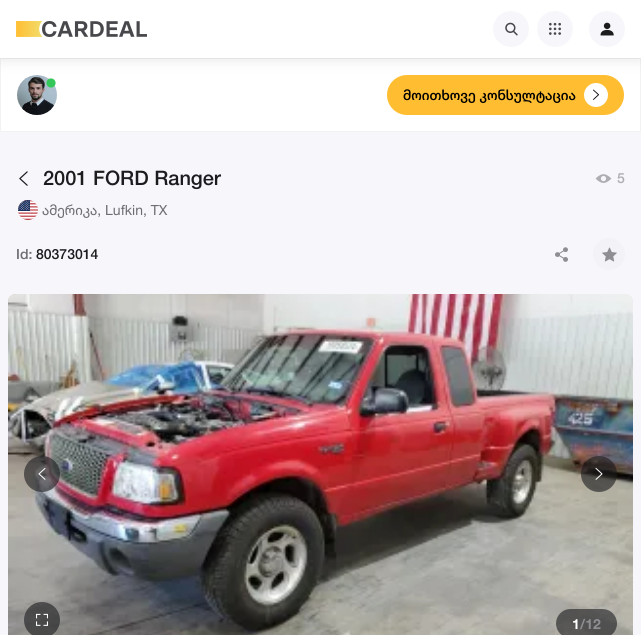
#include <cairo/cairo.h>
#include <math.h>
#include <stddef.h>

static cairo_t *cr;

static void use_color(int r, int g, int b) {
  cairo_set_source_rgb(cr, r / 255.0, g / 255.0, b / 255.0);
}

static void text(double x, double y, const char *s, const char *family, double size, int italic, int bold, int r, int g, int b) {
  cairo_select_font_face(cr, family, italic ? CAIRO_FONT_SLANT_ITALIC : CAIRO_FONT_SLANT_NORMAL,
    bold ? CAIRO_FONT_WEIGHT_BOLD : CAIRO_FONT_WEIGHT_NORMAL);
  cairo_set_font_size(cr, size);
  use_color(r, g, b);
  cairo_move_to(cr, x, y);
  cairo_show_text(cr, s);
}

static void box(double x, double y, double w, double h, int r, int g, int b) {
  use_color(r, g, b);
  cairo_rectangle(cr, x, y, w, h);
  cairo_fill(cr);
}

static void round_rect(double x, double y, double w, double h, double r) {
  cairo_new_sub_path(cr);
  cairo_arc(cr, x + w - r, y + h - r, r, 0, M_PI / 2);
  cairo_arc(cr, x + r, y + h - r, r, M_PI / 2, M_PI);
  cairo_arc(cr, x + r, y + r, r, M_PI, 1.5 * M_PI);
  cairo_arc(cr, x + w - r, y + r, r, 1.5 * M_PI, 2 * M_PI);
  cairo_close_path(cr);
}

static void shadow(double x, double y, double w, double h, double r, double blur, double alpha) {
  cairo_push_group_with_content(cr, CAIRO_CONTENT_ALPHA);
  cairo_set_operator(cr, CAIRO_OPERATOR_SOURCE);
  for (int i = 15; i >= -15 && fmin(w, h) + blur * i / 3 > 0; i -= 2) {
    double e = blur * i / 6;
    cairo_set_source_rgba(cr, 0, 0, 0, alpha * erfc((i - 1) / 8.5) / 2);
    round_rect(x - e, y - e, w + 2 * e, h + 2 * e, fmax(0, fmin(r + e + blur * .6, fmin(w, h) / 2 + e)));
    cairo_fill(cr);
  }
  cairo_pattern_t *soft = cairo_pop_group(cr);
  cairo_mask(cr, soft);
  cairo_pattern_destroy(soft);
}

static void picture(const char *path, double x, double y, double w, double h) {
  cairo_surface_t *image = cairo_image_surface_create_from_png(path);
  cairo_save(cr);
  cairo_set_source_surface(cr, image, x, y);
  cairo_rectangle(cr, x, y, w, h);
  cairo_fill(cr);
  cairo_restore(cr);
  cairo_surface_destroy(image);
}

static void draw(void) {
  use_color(247, 247, 251);
  cairo_paint(cr);
  use_color(255, 255, 255);
  cairo_rectangle(cr, 0.5, 58.5, 640, 73);
  cairo_fill_preserve(cr);
  use_color(242, 242, 242);
  cairo_set_line_width(cr, 1);
  cairo_stroke(cr);
  picture("img_05.png", 17, 75, 40, 40);
  picture("img_06.png", 46, 78, 10, 10);
  use_color(255, 190, 50);
  round_rect(387, 75, 237, 40, 20);
  cairo_fill(cr);
  use_color(0, 0, 0);
  shadow(0, 0, 641, 58, 0, 8, 0.12);
  box(0, 0, 641, 58, 255, 255, 255);
  picture("img_01.png", 16, 21, 131, 16);
  use_color(247, 247, 251);
  cairo_arc(cr, 511, 29, 18, 0, 2 * M_PI);
  cairo_fill(cr);
  picture("img_02.png", 505, 22, 13, 14);
  cairo_arc(cr, 555, 29, 18, 0, 2 * M_PI);
  cairo_fill(cr);
  picture("img_03.png", 549, 22, 12, 13);
  cairo_arc(cr, 607, 29, 18, 0, 2 * M_PI);
  cairo_fill(cr);
  picture("img_04.png", 600, 22, 14, 14);
  use_color(255, 255, 255);
  cairo_arc(cr, 596, 95, 12, 0, 2 * M_PI);
  cairo_fill(cr);
  picture("img_07.png", 593, 89, 6, 11);
  picture("img_08.png", 19, 171, 9, 15);
  picture("img_09.png", 595, 174, 17, 9);
  picture("img_10.png", 18, 200, 20, 20);
  picture("img_11.png", 555, 247, 13, 15);
  use_color(242, 242, 247);
  cairo_arc(cr, 609, 254, 16, 0, 2 * M_PI);
  cairo_fill(cr);
  picture("img_12.png", 602, 247, 15, 15);
  picture("img_13.png", 8, 294, 625, 8);
  picture("img_14.png", 8, 294, 625, 341);
  cairo_set_source_rgba(cr, 0.11, 0.11, 0.118, 0.6);
  cairo_arc(cr, 42, 474, 18, 0, 2 * M_PI);
  cairo_fill(cr);
  picture("img_15.png", 38, 468, 8, 12);
  cairo_arc(cr, 599, 474, 18, 0, 2 * M_PI);
  cairo_fill(cr);
  picture("img_16.png", 595, 468, 8, 12);
  cairo_arc(cr, 42, 620, 18, 0, 2 * M_PI);
  cairo_fill(cr);
  picture("img_17.png", 36, 613, 12, 13);
  round_rect(556, 609, 61, 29, 14.5);
  cairo_fill(cr);
  text(403, 100, "მოითხოვე კონსულტაცია", "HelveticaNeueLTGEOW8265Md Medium", 14, 0, 0, 0, 0, 0);
  text(43, 185, "2001 FORD Ranger", "HelveticaNeueLTGEOW8265Md Medium", 20, 0, 0, 28, 28, 30);
  text(617, 183, "5", "HelveticaNeueLTGEOW8265Md Medium", 14, 0, 0, 174, 174, 178);
  text(42, 215, "ამერიკა, Lufkin, TX", "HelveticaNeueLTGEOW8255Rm", 14, 0, 0, 109, 109, 115);
  text(16, 259, "Id:", "HelveticaNeueLTGEOW8265Md Medium", 14, 0, 0, 109, 109, 115);
  text(36, 259, "80373014", "HelveticaNeueLTGEOW8265Md Medium", 14, 0, 0, 28, 28, 30);
  text(572, 629, "1", "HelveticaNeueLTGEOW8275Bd", 14, 0, 1, 255, 255, 255);
  text(580, 629, "/12", "HelveticaNeueLTGEOW8275Bd", 14, 0, 1, 142, 142, 147);
}

int main(void) {
  cairo_surface_t *surface = cairo_image_surface_create(CAIRO_FORMAT_RGB24, 641, 635);
  cr = cairo_create(surface);
  cairo_font_options_t *options = cairo_font_options_create();
  cairo_font_options_set_hint_metrics(options, CAIRO_HINT_METRICS_OFF);
  cairo_font_options_set_hint_style(options, CAIRO_HINT_STYLE_NONE);
  cairo_set_font_options(cr, options);
  cairo_set_miter_limit(cr, 4);
  draw();
  cairo_surface_write_to_png(surface, "out.png");
  cairo_font_options_destroy(options);
  cairo_destroy(cr);
  cairo_surface_destroy(surface);
  return 0;
}
